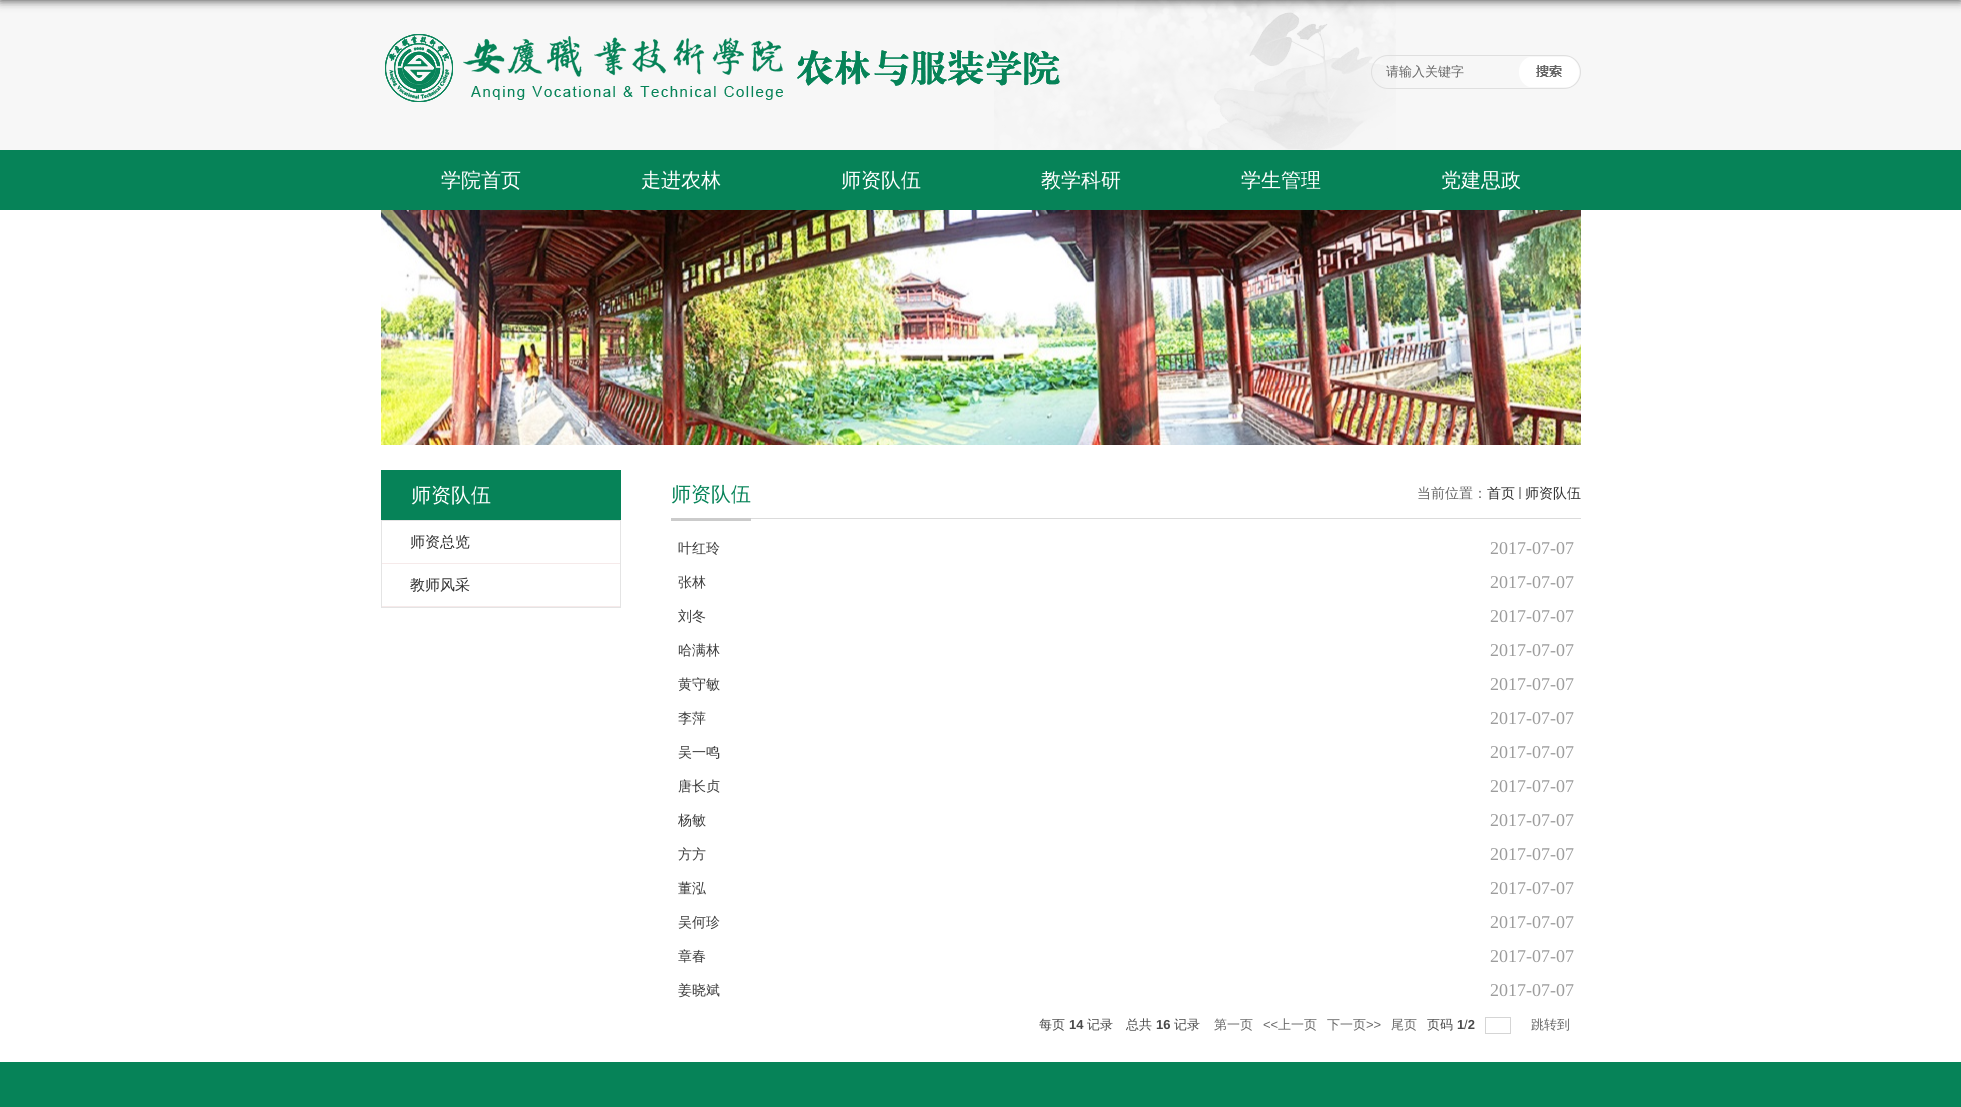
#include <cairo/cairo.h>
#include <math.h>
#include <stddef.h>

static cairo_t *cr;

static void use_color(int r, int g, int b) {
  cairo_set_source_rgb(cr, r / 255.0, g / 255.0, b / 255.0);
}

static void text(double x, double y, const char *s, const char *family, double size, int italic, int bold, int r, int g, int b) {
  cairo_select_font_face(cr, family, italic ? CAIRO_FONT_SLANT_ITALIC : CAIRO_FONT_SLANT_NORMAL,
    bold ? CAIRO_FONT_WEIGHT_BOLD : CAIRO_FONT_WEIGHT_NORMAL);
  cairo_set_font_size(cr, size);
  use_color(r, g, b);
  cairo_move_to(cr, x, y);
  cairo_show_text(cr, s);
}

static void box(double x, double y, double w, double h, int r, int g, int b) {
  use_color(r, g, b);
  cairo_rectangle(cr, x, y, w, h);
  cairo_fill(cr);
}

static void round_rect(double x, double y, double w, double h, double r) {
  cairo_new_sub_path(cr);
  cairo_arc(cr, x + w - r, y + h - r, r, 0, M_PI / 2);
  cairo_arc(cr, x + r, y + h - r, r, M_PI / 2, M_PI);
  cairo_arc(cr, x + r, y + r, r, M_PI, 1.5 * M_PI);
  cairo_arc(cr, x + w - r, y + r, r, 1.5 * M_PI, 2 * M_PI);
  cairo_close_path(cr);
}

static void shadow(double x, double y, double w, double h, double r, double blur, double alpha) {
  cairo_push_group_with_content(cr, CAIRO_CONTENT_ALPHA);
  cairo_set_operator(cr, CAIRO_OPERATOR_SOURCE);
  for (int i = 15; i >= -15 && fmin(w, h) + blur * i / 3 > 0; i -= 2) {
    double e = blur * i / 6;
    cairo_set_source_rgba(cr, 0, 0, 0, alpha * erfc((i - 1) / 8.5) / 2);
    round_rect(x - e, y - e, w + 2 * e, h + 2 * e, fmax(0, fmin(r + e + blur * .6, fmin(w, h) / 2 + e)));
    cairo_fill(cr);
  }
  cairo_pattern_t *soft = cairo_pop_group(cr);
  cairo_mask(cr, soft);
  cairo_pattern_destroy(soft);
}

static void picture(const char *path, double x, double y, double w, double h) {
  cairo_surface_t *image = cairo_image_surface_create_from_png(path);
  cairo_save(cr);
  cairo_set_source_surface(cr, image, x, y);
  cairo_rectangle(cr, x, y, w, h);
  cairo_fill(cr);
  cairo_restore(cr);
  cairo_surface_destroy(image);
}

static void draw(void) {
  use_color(255, 255, 255);
  cairo_paint(cr);
  box(0, 0, 1961, 150, 247, 247, 247);
  picture("img_01.png", 994, 0, 402, 150);
  use_color(0, 0, 0);
  shadow(0, -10, 1961, 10, 0, 5, 0.8);
  picture("img_02.png", 385, 34, 675, 68);
  round_rect(1371.5, 55.5, 209, 33, 16.5);
  use_color(223, 223, 223);
  cairo_set_line_width(cr, 1);
  cairo_stroke(cr);
  picture("img_03.png", 1519, 57, 60, 30);
  box(0, 150, 1961, 60, 6, 131, 88);
  picture("img_04.png", 381, 210, 1200, 235);
  box(381, 470, 240, 50, 6, 131, 88);
  cairo_rectangle(cr, 381.5, 520.5, 239, 87);
  use_color(228, 228, 228);
  cairo_stroke(cr);
  box(382, 563, 238, 1, 246, 234, 234);
  box(382, 606, 238, 1, 246, 234, 234);
  box(751, 518, 830, 1, 219, 219, 219);
  box(671, 518, 80, 3, 203, 203, 203);
  box(1519, 487, 2, 12, 162, 162, 162);
  cairo_rectangle(cr, 1485.5, 1017.5, 25, 16);
  use_color(213, 213, 213);
  cairo_stroke(cr);
  box(0, 1062, 1961, 45, 6, 131, 88);
  text(1386, 76, "请输入关键字", "WenQuanYi Zen Hei Medium", 13, 0, 0, 102, 102, 102);
  text(441, 187, "学院首页", "WenQuanYi Zen Hei Medium", 20, 0, 0, 255, 255, 255);
  text(641, 187, "走进农林", "WenQuanYi Zen Hei Medium", 20, 0, 0, 255, 255, 255);
  text(841, 187, "师资队伍", "WenQuanYi Zen Hei Medium", 20, 0, 0, 255, 255, 255);
  text(1041, 187, "教学科研", "WenQuanYi Zen Hei Medium", 20, 0, 0, 255, 255, 255);
  text(1241, 187, "学生管理", "WenQuanYi Zen Hei Medium", 20, 0, 0, 255, 255, 255);
  text(1441, 187, "党建思政", "WenQuanYi Zen Hei Medium", 20, 0, 0, 255, 255, 255);
  text(411, 502, "师资队伍", "WenQuanYi Zen Hei Medium", 20, 0, 0, 255, 255, 255);
  text(410, 547, "师资总览", "WenQuanYi Zen Hei Medium", 15, 0, 0, 47, 47, 47);
  text(410, 590, "教师风采", "WenQuanYi Zen Hei Medium", 15, 0, 0, 47, 47, 47);
  text(671, 501, "师资队伍", "WenQuanYi Zen Hei Medium", 20, 0, 0, 6, 131, 88);
  text(1417, 498, "当前位置：", "WenQuanYi Zen Hei Medium", 14, 0, 0, 102, 102, 102);
  text(1487, 498, "首页", "WenQuanYi Zen Hei Medium", 14, 0, 0, 47, 47, 47);
  text(1525, 498, "师资队伍", "WenQuanYi Zen Hei Medium", 14, 0, 0, 47, 47, 47);
  text(678, 553, "叶红玲", "WenQuanYi Zen Hei Medium", 14, 0, 0, 59, 59, 59);
  text(1490, 554, "2017-07-07", "Liberation Serif", 18, 0, 0, 156, 156, 156);
  text(678, 587, "张林", "WenQuanYi Zen Hei Medium", 14, 0, 0, 59, 59, 59);
  text(1490, 588, "2017-07-07", "Liberation Serif", 18, 0, 0, 156, 156, 156);
  text(678, 621, "刘冬", "WenQuanYi Zen Hei Medium", 14, 0, 0, 59, 59, 59);
  text(1490, 622, "2017-07-07", "Liberation Serif", 18, 0, 0, 156, 156, 156);
  text(678, 655, "哈满林", "WenQuanYi Zen Hei Medium", 14, 0, 0, 59, 59, 59);
  text(1490, 656, "2017-07-07", "Liberation Serif", 18, 0, 0, 156, 156, 156);
  text(678, 689, "黄守敏", "WenQuanYi Zen Hei Medium", 14, 0, 0, 59, 59, 59);
  text(1490, 690, "2017-07-07", "Liberation Serif", 18, 0, 0, 156, 156, 156);
  text(678, 723, "李萍", "WenQuanYi Zen Hei Medium", 14, 0, 0, 59, 59, 59);
  text(1490, 724, "2017-07-07", "Liberation Serif", 18, 0, 0, 156, 156, 156);
  text(678, 757, "吴一鸣", "WenQuanYi Zen Hei Medium", 14, 0, 0, 59, 59, 59);
  text(1490, 758, "2017-07-07", "Liberation Serif", 18, 0, 0, 156, 156, 156);
  text(678, 791, "唐长贞", "WenQuanYi Zen Hei Medium", 14, 0, 0, 59, 59, 59);
  text(1490, 792, "2017-07-07", "Liberation Serif", 18, 0, 0, 156, 156, 156);
  text(678, 825, "杨敏", "WenQuanYi Zen Hei Medium", 14, 0, 0, 59, 59, 59);
  text(1490, 826, "2017-07-07", "Liberation Serif", 18, 0, 0, 156, 156, 156);
  text(678, 859, "方方", "WenQuanYi Zen Hei Medium", 14, 0, 0, 59, 59, 59);
  text(1490, 860, "2017-07-07", "Liberation Serif", 18, 0, 0, 156, 156, 156);
  text(678, 893, "董泓", "WenQuanYi Zen Hei Medium", 14, 0, 0, 59, 59, 59);
  text(1490, 894, "2017-07-07", "Liberation Serif", 18, 0, 0, 156, 156, 156);
  text(678, 927, "吴何珍", "WenQuanYi Zen Hei Medium", 14, 0, 0, 59, 59, 59);
  text(1490, 928, "2017-07-07", "Liberation Serif", 18, 0, 0, 156, 156, 156);
  text(678, 961, "章春", "WenQuanYi Zen Hei Medium", 14, 0, 0, 59, 59, 59);
  text(1490, 962, "2017-07-07", "Liberation Serif", 18, 0, 0, 156, 156, 156);
  text(678, 995, "姜晓斌", "WenQuanYi Zen Hei Medium", 14, 0, 0, 59, 59, 59);
  text(1490, 996, "2017-07-07", "Liberation Serif", 18, 0, 0, 156, 156, 156);
  text(1039, 1029, "每页", "WenQuanYi Zen Hei Medium", 13, 0, 0, 73, 73, 73);
  text(1069, 1029, "14", "Liberation Sans", 13, 0, 1, 73, 73, 73);
  text(1087, 1029, "记录", "WenQuanYi Zen Hei Medium", 13, 0, 0, 73, 73, 73);
  text(1126, 1029, "总共", "WenQuanYi Zen Hei Medium", 13, 0, 0, 73, 73, 73);
  text(1156, 1029, "16", "Liberation Sans", 13, 0, 1, 73, 73, 73);
  text(1174, 1029, "记录", "WenQuanYi Zen Hei Medium", 13, 0, 0, 73, 73, 73);
  text(1214, 1029, "第一页", "WenQuanYi Zen Hei Medium", 13, 0, 0, 102, 102, 102);
  text(1263, 1029, "<<", "Liberation Sans", 13, 0, 0, 102, 102, 102);
  text(1278, 1029, "上一页", "WenQuanYi Zen Hei Medium", 13, 0, 0, 102, 102, 102);
  text(1327, 1029, "下一页", "WenQuanYi Zen Hei Medium", 13, 0, 0, 102, 102, 102);
  text(1366, 1029, ">>", "Liberation Sans", 13, 0, 0, 102, 102, 102);
  text(1391, 1029, "尾页", "WenQuanYi Zen Hei Medium", 13, 0, 0, 102, 102, 102);
  text(1427, 1029, "页码", "WenQuanYi Zen Hei Medium", 13, 0, 0, 73, 73, 73);
  text(1457, 1029, "1 2", "Liberation Sans", 13, 0, 1, 73, 73, 73);
  text(1464, 1029, "/", "Liberation Sans", 13, 0, 0, 73, 73, 73);
  text(1531, 1029, "跳转到", "WenQuanYi Zen Hei Medium", 13, 0, 0, 102, 102, 102);
}

int main(void) {
  cairo_surface_t *surface = cairo_image_surface_create(CAIRO_FORMAT_RGB24, 1961, 1107);
  cr = cairo_create(surface);
  cairo_font_options_t *options = cairo_font_options_create();
  cairo_font_options_set_hint_metrics(options, CAIRO_HINT_METRICS_OFF);
  cairo_font_options_set_hint_style(options, CAIRO_HINT_STYLE_NONE);
  cairo_set_font_options(cr, options);
  cairo_set_miter_limit(cr, 4);
  draw();
  cairo_surface_write_to_png(surface, "out.png");
  cairo_font_options_destroy(options);
  cairo_destroy(cr);
  cairo_surface_destroy(surface);
  return 0;
}
